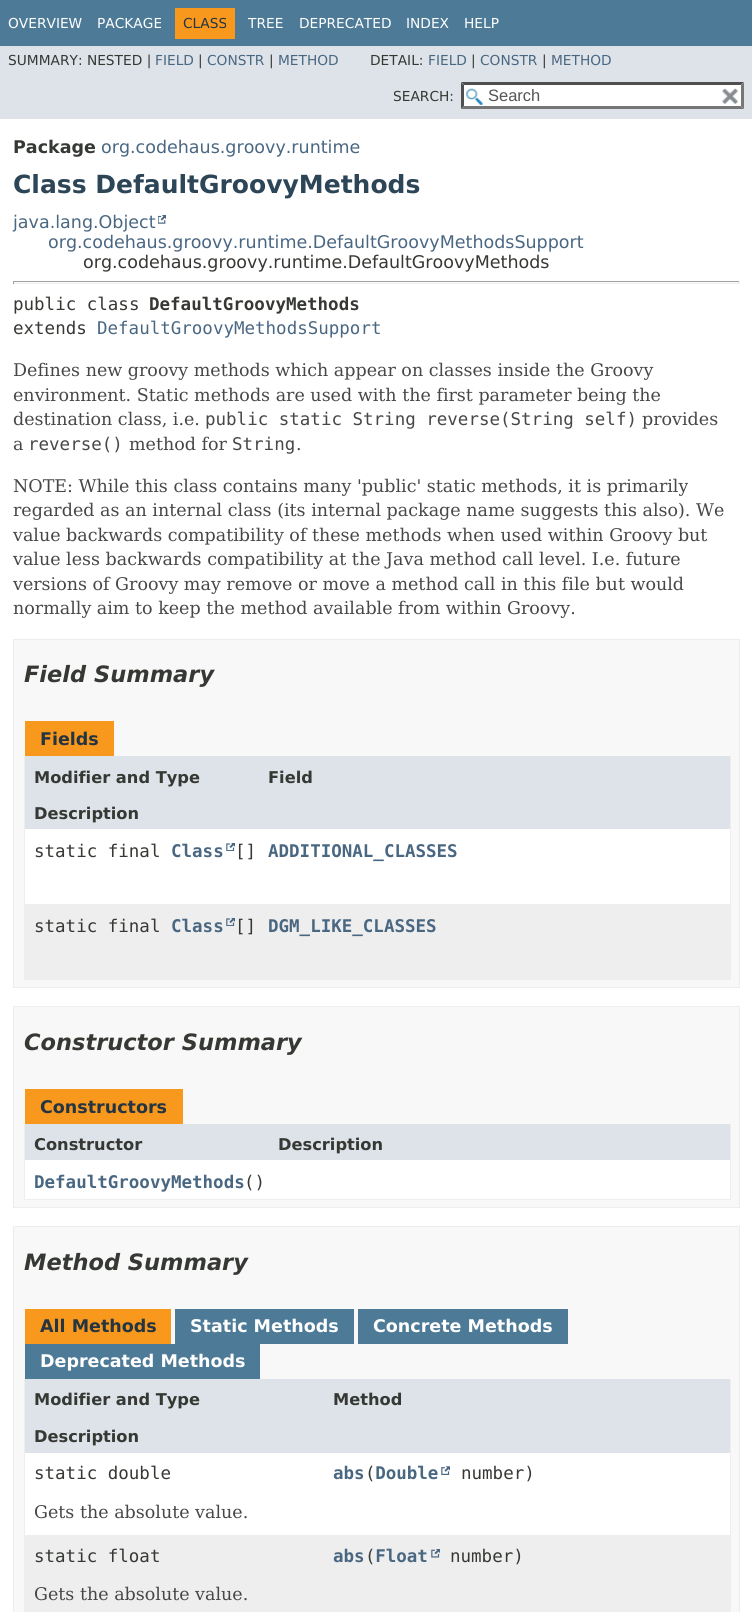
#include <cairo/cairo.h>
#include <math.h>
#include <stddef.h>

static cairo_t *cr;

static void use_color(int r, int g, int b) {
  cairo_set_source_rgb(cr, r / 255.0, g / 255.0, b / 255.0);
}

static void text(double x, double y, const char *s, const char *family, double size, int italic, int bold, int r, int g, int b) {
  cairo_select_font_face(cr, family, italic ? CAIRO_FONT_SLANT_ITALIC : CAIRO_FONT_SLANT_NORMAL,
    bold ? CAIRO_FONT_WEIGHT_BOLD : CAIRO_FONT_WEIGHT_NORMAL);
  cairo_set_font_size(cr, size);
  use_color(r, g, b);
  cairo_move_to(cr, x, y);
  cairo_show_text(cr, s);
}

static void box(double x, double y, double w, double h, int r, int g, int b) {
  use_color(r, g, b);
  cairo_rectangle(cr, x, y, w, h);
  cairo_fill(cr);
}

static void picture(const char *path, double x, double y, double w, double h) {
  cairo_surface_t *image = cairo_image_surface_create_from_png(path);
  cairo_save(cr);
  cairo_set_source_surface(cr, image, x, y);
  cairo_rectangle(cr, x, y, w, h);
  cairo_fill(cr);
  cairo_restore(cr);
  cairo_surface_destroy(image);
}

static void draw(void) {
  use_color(255, 255, 255);
  cairo_paint(cr);
  box(0, 0, 752, 46, 77, 122, 151);
  box(175, 8, 60, 31, 248, 152, 29);
  box(0, 46, 752, 73, 222, 227, 233);
  box(461, 83, 283, 26, 255, 255, 255);
  picture("img_01.png", 466, 88, 17, 17);
  use_color(79, 79, 79);
  cairo_new_path(cr);
  cairo_move_to(cr, 461, 82);
  cairo_line_to(cr, 744, 82);
  cairo_line_to(cr, 741, 85);
  cairo_line_to(cr, 464, 85);
  cairo_close_path(cr);
  cairo_fill(cr);
  use_color(118, 118, 118);
  cairo_new_path(cr);
  cairo_move_to(cr, 744, 82.5);
  cairo_line_to(cr, 744, 109);
  cairo_line_to(cr, 741, 106);
  cairo_line_to(cr, 741, 85);
  cairo_close_path(cr);
  cairo_fill(cr);
  cairo_new_path(cr);
  cairo_move_to(cr, 744, 109);
  cairo_line_to(cr, 461, 109);
  cairo_line_to(cr, 464, 106);
  cairo_line_to(cr, 741, 106);
  cairo_close_path(cr);
  cairo_fill(cr);
  use_color(79, 79, 79);
  cairo_new_path(cr);
  cairo_move_to(cr, 461, 109);
  cairo_line_to(cr, 461, 82.5);
  cairo_line_to(cr, 464, 85);
  cairo_line_to(cr, 464, 106);
  cairo_close_path(cr);
  cairo_fill(cr);
  picture("img_02.png", 722, 88, 16, 16);
  picture("img_03.png", 158, 215, 8, 9);
  box(13, 281, 727, 1, 159, 159, 159);
  box(739, 281, 1, 3, 238, 238, 238);
  box(13, 283, 727, 1, 238, 238, 238);
  box(13, 281, 1, 3, 159, 159, 159);
  use_color(248, 248, 248);
  cairo_rectangle(cr, 13.5, 639.5, 726, 348);
  cairo_fill_preserve(cr);
  use_color(237, 237, 237);
  cairo_set_line_width(cr, 1);
  cairo_stroke(cr);
  box(25, 721, 89, 35, 248, 152, 29);
  box(730, 756, 1, 224, 238, 238, 238);
  box(24, 979, 707, 1, 238, 238, 238);
  box(24, 756, 1, 224, 238, 238, 238);
  box(25, 756, 705, 37, 222, 227, 233);
  box(25, 793, 705, 36, 222, 227, 233);
  box(25, 829, 705, 39, 255, 255, 255);
  picture("img_04.png", 226, 843, 9, 8);
  box(25, 868, 705, 36, 255, 255, 255);
  box(25, 904, 705, 39, 238, 238, 239);
  picture("img_05.png", 226, 918, 9, 8);
  box(25, 943, 705, 36, 238, 238, 239);
  use_color(248, 248, 248);
  cairo_rectangle(cr, 13.5, 1006.5, 726, 201);
  cairo_fill_preserve(cr);
  use_color(237, 237, 237);
  cairo_stroke(cr);
  box(25, 1089, 158, 35, 248, 152, 29);
  box(730, 1124, 1, 76, 238, 238, 238);
  box(24, 1199, 707, 1, 238, 238, 238);
  box(24, 1124, 1, 76, 238, 238, 238);
  box(25, 1124, 705, 36, 222, 227, 233);
  box(25, 1160, 705, 39, 255, 255, 255);
  use_color(248, 248, 248);
  cairo_rectangle(cr, 13.5, 1226.5, 726, 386);
  cairo_fill_preserve(cr);
  use_color(237, 237, 237);
  cairo_stroke(cr);
  box(25, 1309, 146, 35, 248, 152, 29);
  box(175, 1309, 179, 35, 77, 122, 151);
  box(358, 1309, 210, 35, 77, 122, 151);
  box(25, 1344, 235, 35, 77, 122, 151);
  box(730, 1379, 1, 233, 238, 238, 238);
  box(24, 1379, 1, 233, 238, 238, 238);
  box(25, 1379, 705, 36, 222, 227, 233);
  box(25, 1415, 705, 38, 222, 227, 233);
  box(25, 1453, 705, 37, 255, 255, 255);
  picture("img_06.png", 441, 1466, 9, 9);
  box(25, 1490, 705, 45, 255, 255, 255);
  box(25, 1535, 705, 38, 238, 238, 239);
  picture("img_07.png", 431, 1549, 9, 9);
  box(25, 1573, 705, 39, 238, 238, 239);
  text(8, 28, "OVERVIEW", "DejaVu Sans", 13.75, 0, 0, 255, 255, 255);
  text(97, 28, "PACKAGE", "DejaVu Sans", 13.75, 0, 0, 255, 255, 255);
  text(183, 28, "CLASS", "DejaVu Sans", 13.75, 0, 0, 37, 52, 65);
  text(248, 28, "TREE", "DejaVu Sans", 13.75, 0, 0, 255, 255, 255);
  text(299, 28, "DEPRECATED", "DejaVu Sans", 13.75, 0, 0, 255, 255, 255);
  text(406, 28, "INDEX", "DejaVu Sans", 13.75, 0, 0, 255, 255, 255);
  text(464, 28, "HELP", "DejaVu Sans", 13.75, 0, 0, 255, 255, 255);
  text(8, 65, "SUMMARY: NESTED |", "DejaVu Sans", 13.75, 0, 0, 53, 56, 51);
  text(155, 65, "FIELD", "DejaVu Sans", 13.75, 0, 0, 74, 103, 130);
  text(198, 65, "|", "DejaVu Sans", 13.75, 0, 0, 53, 56, 51);
  text(207, 65, "CONSTR", "DejaVu Sans", 13.75, 0, 0, 74, 103, 130);
  text(269, 65, "|", "DejaVu Sans", 13.75, 0, 0, 53, 56, 51);
  text(278, 65, "METHOD", "DejaVu Sans", 13.75, 0, 0, 74, 103, 130);
  text(370, 65, "DETAIL:", "DejaVu Sans", 13.75, 0, 0, 53, 56, 51);
  text(428, 65, "FIELD", "DejaVu Sans", 13.75, 0, 0, 74, 103, 130);
  text(471, 65, "|", "DejaVu Sans", 13.75, 0, 0, 53, 56, 51);
  text(480, 65, "CONSTR", "DejaVu Sans", 13.75, 0, 0, 74, 103, 130);
  text(542, 65, "|", "DejaVu Sans", 13.75, 0, 0, 53, 56, 51);
  text(551, 65, "METHOD", "DejaVu Sans", 13.75, 0, 0, 74, 103, 130);
  text(393, 101, "SEARCH:", "DejaVu Sans", 13.75, 0, 0, 53, 56, 51);
  text(488, 101, "Search", "Liberation Sans", 16.5, 0, 0, 84, 84, 84);
  text(13, 153, "Package", "DejaVu Sans", 17.5, 0, 1, 53, 56, 51);
  text(101, 153, "org.codehaus.groovy.runtime", "DejaVu Sans", 17.5, 0, 0, 74, 103, 130);
  text(13, 193, "Class DefaultGroovyMethods", "DejaVu Sans", 25, 0, 1, 44, 69, 87);
  text(13, 228, "java.lang.Object", "DejaVu Sans", 17.5, 0, 0, 74, 103, 130);
  text(48, 248, "org.codehaus.groovy.runtime.DefaultGroovyMethodsSupport", "DejaVu Sans", 17.5, 0, 0, 74, 103, 130);
  text(83, 268, "org.codehaus.groovy.runtime.DefaultGroovyMethods", "DejaVu Sans", 17.5, 0, 0, 53, 56, 51);
  text(13, 310, "public class", "DejaVu Sans Mono", 17.5, 0, 0, 53, 56, 51);
  text(149, 310, "DefaultGroovyMethods", "DejaVu Sans Mono", 17.5, 0, 1, 53, 56, 51);
  text(13, 334, "extends", "DejaVu Sans Mono", 17.5, 0, 0, 53, 56, 51);
  text(97, 334, "DefaultGroovyMethodsSupport", "DejaVu Sans Mono", 17.5, 0, 0, 74, 103, 130);
  text(13, 376, "Defines new groovy methods which appear on classes inside the Groovy", "DejaVu Serif", 17.5, 0, 0, 71, 71, 71);
  text(13, 401, "environment. Static methods are used with the first parameter being the", "DejaVu Serif", 17.5, 0, 0, 71, 71, 71);
  text(13, 425, "destination class, i.e.", "DejaVu Serif", 17.5, 0, 0, 71, 71, 71);
  text(205, 425, "public static String reverse(String self)", "DejaVu Sans Mono", 17.5, 0, 0, 71, 71, 71);
  text(642, 425, "provides", "DejaVu Serif", 17.5, 0, 0, 71, 71, 71);
  text(13, 450, "a", "DejaVu Serif", 17.5, 0, 0, 71, 71, 71);
  text(28, 450, "reverse()", "DejaVu Sans Mono", 17.5, 0, 0, 71, 71, 71);
  text(129, 450, "method for", "DejaVu Serif", 17.5, 0, 0, 71, 71, 71);
  text(232, 450, "String", "DejaVu Sans Mono", 17.5, 0, 0, 71, 71, 71);
  text(296, 450, ".", "DejaVu Serif", 17.5, 0, 0, 71, 71, 71);
  text(13, 492, "NOTE: While this class contains many 'public' static methods, it is primarily", "DejaVu Serif", 17.5, 0, 0, 71, 71, 71);
  text(13, 516, "regarded as an internal class (its internal package name suggests this also). We", "DejaVu Serif", 17.5, 0, 0, 71, 71, 71);
  text(13, 541, "value backwards compatibility of these methods when used within Groovy but", "DejaVu Serif", 17.5, 0, 0, 71, 71, 71);
  text(13, 565, "value less backwards compatibility at the Java method call level. I.e. future", "DejaVu Serif", 17.5, 0, 0, 71, 71, 71);
  text(13, 590, "versions of Groovy may remove or move a method call in this file but would", "DejaVu Serif", 17.5, 0, 0, 71, 71, 71);
  text(13, 614, "normally aim to keep the method available from within Groovy.", "DejaVu Serif", 17.5, 0, 0, 71, 71, 71);
  text(24, 682, "Field Summary", "DejaVu Sans", 22.5, 1, 1, 53, 56, 51);
  text(40, 745, "Fields", "DejaVu Sans", 17.5, 0, 1, 37, 52, 65);
  text(34, 783, "Modifier and Type", "DejaVu Sans", 16.25, 0, 1, 53, 56, 51);
  text(268, 783, "Field", "DejaVu Sans", 16.25, 0, 1, 53, 56, 51);
  text(34, 819, "Description", "DejaVu Sans", 16.25, 0, 1, 53, 56, 51);
  text(34, 857, "static final", "DejaVu Sans Mono", 17.5, 0, 0, 53, 56, 51);
  text(171, 857, "Class", "DejaVu Sans Mono", 17.5, 0, 1, 74, 103, 130);
  text(235, 857, "[]", "DejaVu Sans Mono", 17.5, 0, 0, 53, 56, 51);
  text(268, 857, "ADDITIONAL_CLASSES", "DejaVu Sans Mono", 17.5, 0, 1, 74, 103, 130);
  text(34, 932, "static final", "DejaVu Sans Mono", 17.5, 0, 0, 53, 56, 51);
  text(171, 932, "Class", "DejaVu Sans Mono", 17.5, 0, 1, 74, 103, 130);
  text(235, 932, "[]", "DejaVu Sans Mono", 17.5, 0, 0, 53, 56, 51);
  text(268, 932, "DGM_LIKE_CLASSES", "DejaVu Sans Mono", 17.5, 0, 1, 74, 103, 130);
  text(24, 1050, "Constructor Summary", "DejaVu Sans", 22.5, 1, 1, 53, 56, 51);
  text(40, 1113, "Constructors", "DejaVu Sans", 17.5, 0, 1, 37, 52, 65);
  text(34, 1150, "Constructor", "DejaVu Sans", 16.25, 0, 1, 53, 56, 51);
  text(278, 1150, "Description", "DejaVu Sans", 16.25, 0, 1, 53, 56, 51);
  text(34, 1188, "DefaultGroovyMethods", "DejaVu Sans Mono", 17.5, 0, 1, 74, 103, 130);
  text(244, 1188, "()", "DejaVu Sans Mono", 17.5, 0, 0, 53, 56, 51);
  text(24, 1270, "Method Summary", "DejaVu Sans", 22.5, 1, 1, 53, 56, 51);
  text(40, 1332, "All Methods", "DejaVu Sans", 17.5, 0, 1, 37, 52, 65);
  text(190, 1332, "Static Methods", "DejaVu Sans", 17.5, 0, 1, 255, 255, 255);
  text(373, 1332, "Concrete Methods", "DejaVu Sans", 17.5, 0, 1, 255, 255, 255);
  text(40, 1367, "Deprecated Methods", "DejaVu Sans", 17.5, 0, 1, 255, 255, 255);
  text(34, 1405, "Modifier and Type", "DejaVu Sans", 16.25, 0, 1, 53, 56, 51);
  text(333, 1405, "Method", "DejaVu Sans", 16.25, 0, 1, 53, 56, 51);
  text(34, 1442, "Description", "DejaVu Sans", 16.25, 0, 1, 53, 56, 51);
  text(34, 1479, "static double", "DejaVu Sans Mono", 17.5, 0, 0, 53, 56, 51);
  text(333, 1479, "abs Double", "DejaVu Sans Mono", 17.5, 0, 1, 74, 103, 130);
  text(365, 1479, "(", "DejaVu Sans Mono", 17.5, 0, 0, 53, 56, 51);
  text(461, 1479, "number)", "DejaVu Sans Mono", 17.5, 0, 0, 53, 56, 51);
  text(34, 1518, "Gets the absolute value.", "DejaVu Serif", 17.5, 0, 0, 71, 71, 71);
  text(34, 1562, "static float", "DejaVu Sans Mono", 17.5, 0, 0, 53, 56, 51);
  text(333, 1562, "abs Float", "DejaVu Sans Mono", 17.5, 0, 1, 74, 103, 130);
  text(365, 1562, "(", "DejaVu Sans Mono", 17.5, 0, 0, 53, 56, 51);
  text(450, 1562, "number)", "DejaVu Sans Mono", 17.5, 0, 0, 53, 56, 51);
  text(34, 1600, "Gets the absolute value.", "DejaVu Serif", 17.5, 0, 0, 71, 71, 71);
}

int main(void) {
  cairo_surface_t *surface = cairo_image_surface_create(CAIRO_FORMAT_RGB24, 752, 1612);
  cr = cairo_create(surface);
  cairo_font_options_t *options = cairo_font_options_create();
  cairo_font_options_set_hint_metrics(options, CAIRO_HINT_METRICS_OFF);
  cairo_font_options_set_hint_style(options, CAIRO_HINT_STYLE_NONE);
  cairo_set_font_options(cr, options);
  cairo_set_miter_limit(cr, 4);
  draw();
  cairo_surface_write_to_png(surface, "out.png");
  cairo_font_options_destroy(options);
  cairo_destroy(cr);
  cairo_surface_destroy(surface);
  return 0;
}
